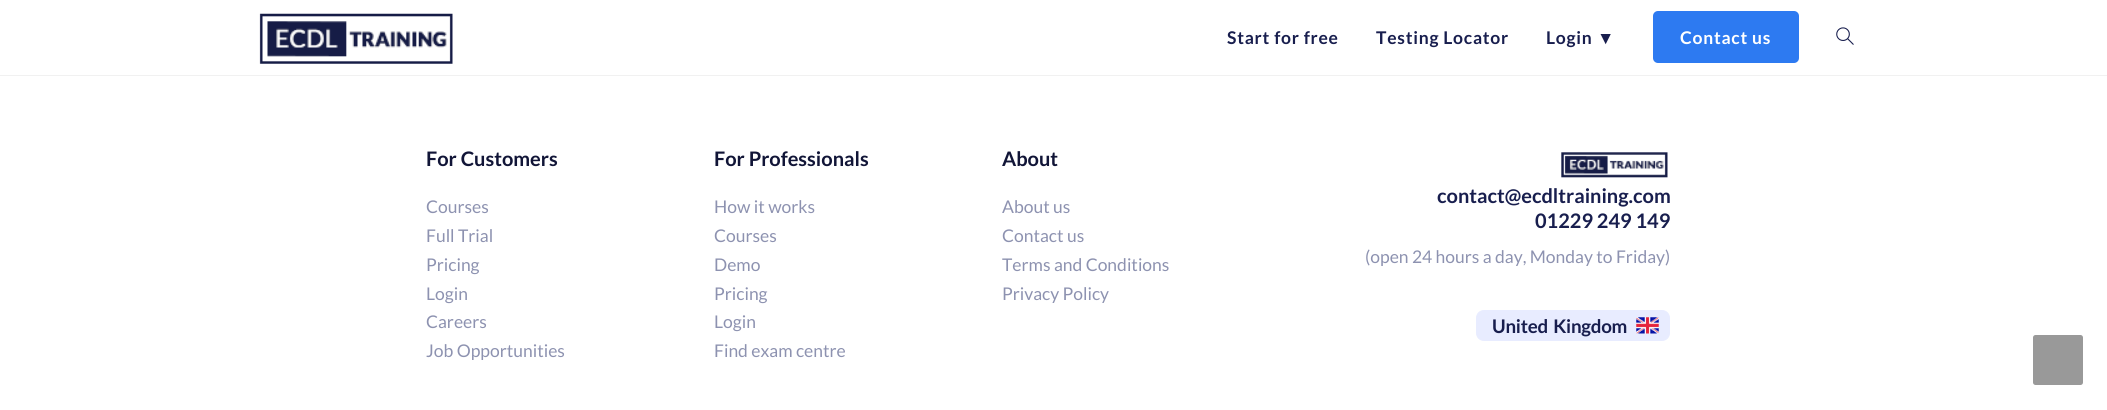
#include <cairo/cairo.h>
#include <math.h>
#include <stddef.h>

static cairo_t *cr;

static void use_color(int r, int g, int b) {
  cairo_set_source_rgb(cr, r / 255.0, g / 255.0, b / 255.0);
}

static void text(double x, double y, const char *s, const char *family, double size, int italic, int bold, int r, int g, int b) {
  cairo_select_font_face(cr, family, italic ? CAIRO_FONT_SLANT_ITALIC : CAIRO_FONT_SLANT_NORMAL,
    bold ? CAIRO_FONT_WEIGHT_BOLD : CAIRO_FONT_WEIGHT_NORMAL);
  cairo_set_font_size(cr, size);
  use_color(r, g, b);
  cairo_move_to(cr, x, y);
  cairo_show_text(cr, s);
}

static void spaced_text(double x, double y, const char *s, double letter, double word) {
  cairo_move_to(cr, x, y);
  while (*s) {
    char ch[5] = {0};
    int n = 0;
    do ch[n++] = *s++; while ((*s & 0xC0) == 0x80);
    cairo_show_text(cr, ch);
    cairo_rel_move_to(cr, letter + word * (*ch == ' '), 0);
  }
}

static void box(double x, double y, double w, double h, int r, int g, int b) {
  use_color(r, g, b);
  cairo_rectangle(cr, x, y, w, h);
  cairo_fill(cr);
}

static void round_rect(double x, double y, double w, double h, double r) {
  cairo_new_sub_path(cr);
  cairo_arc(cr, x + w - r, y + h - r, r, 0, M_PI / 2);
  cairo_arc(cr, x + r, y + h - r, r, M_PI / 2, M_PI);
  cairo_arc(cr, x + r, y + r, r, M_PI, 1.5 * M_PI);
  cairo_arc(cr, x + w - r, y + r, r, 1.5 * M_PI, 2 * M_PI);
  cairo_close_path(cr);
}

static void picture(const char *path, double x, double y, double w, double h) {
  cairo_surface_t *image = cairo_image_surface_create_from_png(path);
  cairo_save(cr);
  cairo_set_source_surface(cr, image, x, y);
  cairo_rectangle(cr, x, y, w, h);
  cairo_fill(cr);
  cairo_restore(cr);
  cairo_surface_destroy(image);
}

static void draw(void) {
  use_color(255, 255, 255);
  cairo_paint(cr);
  box(0, 75, 2107, 1, 241, 241, 241);
  picture("img_01.png", 259, 13, 194, 51);
  use_color(45, 122, 241);
  round_rect(1653, 11, 146, 52, 5);
  cairo_fill(cr);
  picture("img_02.png", 1836, 27, 18, 18);
  picture("img_03.png", 1561, 152, 107, 26);
  use_color(232, 236, 255);
  round_rect(1476.5, 310.5, 193, 30, 7.5);
  cairo_fill_preserve(cr);
  cairo_set_line_width(cr, 1);
  cairo_stroke(cr);
  picture("img_04.png", 1636, 317, 23, 17);
  use_color(153, 153, 153);
  round_rect(2033, 335, 50, 50, 2.5);
  cairo_fill(cr);
  cairo_select_font_face(cr, "Lato", CAIRO_FONT_SLANT_NORMAL, CAIRO_FONT_WEIGHT_BOLD);
  cairo_set_font_size(cr, 17.5);
  use_color(24, 30, 78);
  spaced_text(1227, 44, "Start for free", 0.75, 0);
  spaced_text(1376, 44, "Testing Locator", 0.75, 0);
  spaced_text(1546, 44, "Login", 0.75, 0);
  cairo_select_font_face(cr, "Liberation Serif", CAIRO_FONT_SLANT_NORMAL, CAIRO_FONT_WEIGHT_BOLD);
  spaced_text(1597, 44, "▼", 0.75, 0);
  cairo_select_font_face(cr, "Lato", CAIRO_FONT_SLANT_NORMAL, CAIRO_FONT_WEIGHT_BOLD);
  use_color(255, 255, 255);
  spaced_text(1680, 44, "Contact us", 0.75, 0);
  text(426, 166, "For Customers", "Lato", 20, 0, 1, 17, 21, 55);
  text(426, 213, "Courses", "Lato", 17.5, 0, 0, 141, 146, 176);
  text(426, 242, "Full Trial", "Lato", 17.5, 0, 0, 141, 146, 176);
  text(426, 271, "Pricing", "Lato", 17.5, 0, 0, 141, 146, 176);
  text(426, 300, "Login", "Lato", 17.5, 0, 0, 141, 146, 176);
  text(426, 328, "Careers", "Lato", 17.5, 0, 0, 141, 146, 176);
  text(426, 357, "Job Opportunities", "Lato", 17.5, 0, 0, 141, 146, 176);
  text(714, 166, "For Professionals", "Lato", 20, 0, 1, 17, 21, 55);
  text(714, 213, "How it works", "Lato", 17.5, 0, 0, 141, 146, 176);
  text(714, 242, "Courses", "Lato", 17.5, 0, 0, 141, 146, 176);
  text(714, 271, "Demo", "Lato", 17.5, 0, 0, 141, 146, 176);
  text(714, 300, "Pricing", "Lato", 17.5, 0, 0, 141, 146, 176);
  text(714, 328, "Login", "Lato", 17.5, 0, 0, 141, 146, 176);
  text(714, 357, "Find exam centre", "Lato", 17.5, 0, 0, 141, 146, 176);
  text(1002, 166, "About", "Lato", 20, 0, 1, 17, 21, 55);
  text(1002, 213, "About us", "Lato", 17.5, 0, 0, 141, 146, 176);
  text(1002, 242, "Contact us", "Lato", 17.5, 0, 0, 141, 146, 176);
  text(1002, 271, "Terms and Conditions", "Lato", 17.5, 0, 0, 141, 146, 176);
  text(1002, 300, "Privacy Policy", "Lato", 17.5, 0, 0, 141, 146, 176);
  text(1437, 203, "contact@ecdltraining.com", "Lato", 20, 0, 1, 24, 30, 78);
  text(1535, 228, "01229 249 149", "Lato", 20, 0, 1, 24, 30, 78);
  text(1365, 263, "(open 24 hours a day, Monday to Friday)", "Lato", 17.5, 0, 0, 141, 146, 176);
  cairo_select_font_face(cr, "Lato", CAIRO_FONT_SLANT_NORMAL, CAIRO_FONT_WEIGHT_BOLD);
  cairo_set_font_size(cr, 18.75);
  use_color(24, 30, 78);
  spaced_text(1492, 333, "United Kingdom", -0.25, 2);
}

int main(void) {
  cairo_surface_t *surface = cairo_image_surface_create(CAIRO_FORMAT_RGB24, 2107, 410);
  cr = cairo_create(surface);
  cairo_font_options_t *options = cairo_font_options_create();
  cairo_font_options_set_hint_metrics(options, CAIRO_HINT_METRICS_OFF);
  cairo_font_options_set_hint_style(options, CAIRO_HINT_STYLE_NONE);
  cairo_set_font_options(cr, options);
  cairo_set_miter_limit(cr, 4);
  draw();
  cairo_surface_write_to_png(surface, "out.png");
  cairo_font_options_destroy(options);
  cairo_destroy(cr);
  cairo_surface_destroy(surface);
  return 0;
}
